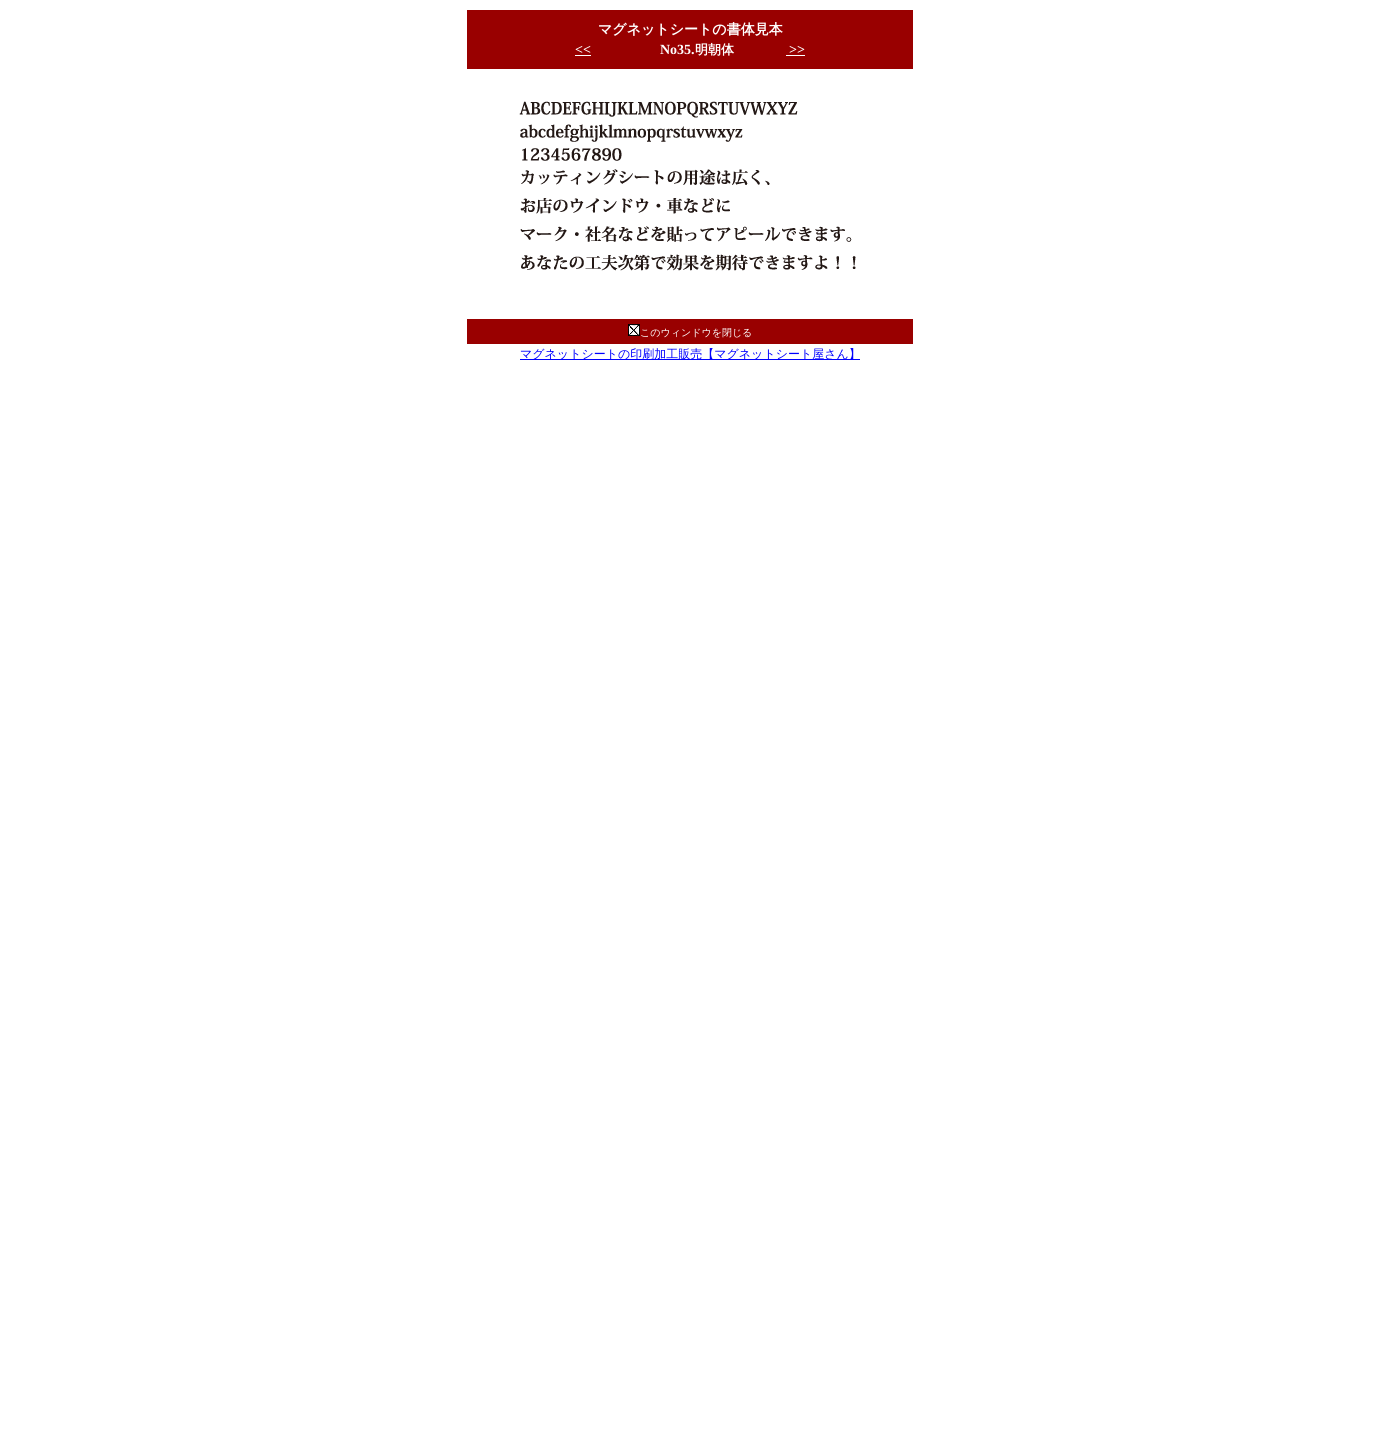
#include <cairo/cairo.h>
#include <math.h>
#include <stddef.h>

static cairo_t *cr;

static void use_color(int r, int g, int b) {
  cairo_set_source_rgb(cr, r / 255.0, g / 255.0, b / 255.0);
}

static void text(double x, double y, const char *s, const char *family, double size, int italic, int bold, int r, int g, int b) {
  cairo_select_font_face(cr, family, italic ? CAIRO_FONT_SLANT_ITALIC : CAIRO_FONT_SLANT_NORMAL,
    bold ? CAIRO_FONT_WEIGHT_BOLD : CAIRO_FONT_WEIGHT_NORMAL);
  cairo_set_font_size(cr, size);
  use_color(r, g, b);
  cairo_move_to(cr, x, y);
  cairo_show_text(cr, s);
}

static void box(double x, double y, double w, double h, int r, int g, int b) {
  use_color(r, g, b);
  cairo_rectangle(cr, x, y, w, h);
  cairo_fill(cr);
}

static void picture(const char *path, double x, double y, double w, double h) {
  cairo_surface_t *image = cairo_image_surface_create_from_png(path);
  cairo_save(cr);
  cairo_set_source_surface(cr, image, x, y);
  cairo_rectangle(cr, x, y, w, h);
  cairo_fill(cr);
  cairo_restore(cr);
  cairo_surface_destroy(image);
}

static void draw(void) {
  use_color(255, 255, 255);
  cairo_paint(cr);
  box(467, 10, 446, 59, 153, 0, 0);
  box(575, 55, 16, 1, 255, 255, 255);
  box(786, 55, 19, 1, 255, 255, 255);
  picture("img_01.png", 519, 101, 337, 170);
  box(467, 319, 446, 25, 153, 0, 0);
  picture("img_02.png", 628, 324, 12, 12);
  box(520, 359, 340, 1, 0, 0, 255);
  text(598, 34, "マグネットシートの書体見本", "WenQuanYi Zen Hei", 14, 0, 1, 255, 255, 255);
  text(575, 54, "<<", "Liberation Serif", 14, 0, 1, 255, 255, 255);
  text(660, 54, "No35.", "Liberation Serif", 14, 0, 1, 255, 255, 255);
  text(695, 54, "明朝体", "WenQuanYi Zen Hei", 13, 0, 1, 255, 255, 255);
  text(789, 54, ">>", "Liberation Serif", 14, 0, 1, 255, 255, 255);
  text(640, 336, "このウィンドウを閉じる", "WenQuanYi Zen Hei Medium", 10, 0, 0, 255, 255, 255);
  text(520, 358, "マグネットシートの印刷加工販売【マグネットシート屋さん】", "WenQuanYi Zen Hei Medium", 12, 0, 0, 0, 0, 255);
}

int main(void) {
  cairo_surface_t *surface = cairo_image_surface_create(CAIRO_FORMAT_RGB24, 1380, 1450);
  cr = cairo_create(surface);
  cairo_font_options_t *options = cairo_font_options_create();
  cairo_font_options_set_hint_metrics(options, CAIRO_HINT_METRICS_OFF);
  cairo_font_options_set_hint_style(options, CAIRO_HINT_STYLE_NONE);
  cairo_set_font_options(cr, options);
  cairo_set_miter_limit(cr, 4);
  draw();
  cairo_surface_write_to_png(surface, "out.png");
  cairo_font_options_destroy(options);
  cairo_destroy(cr);
  cairo_surface_destroy(surface);
  return 0;
}
